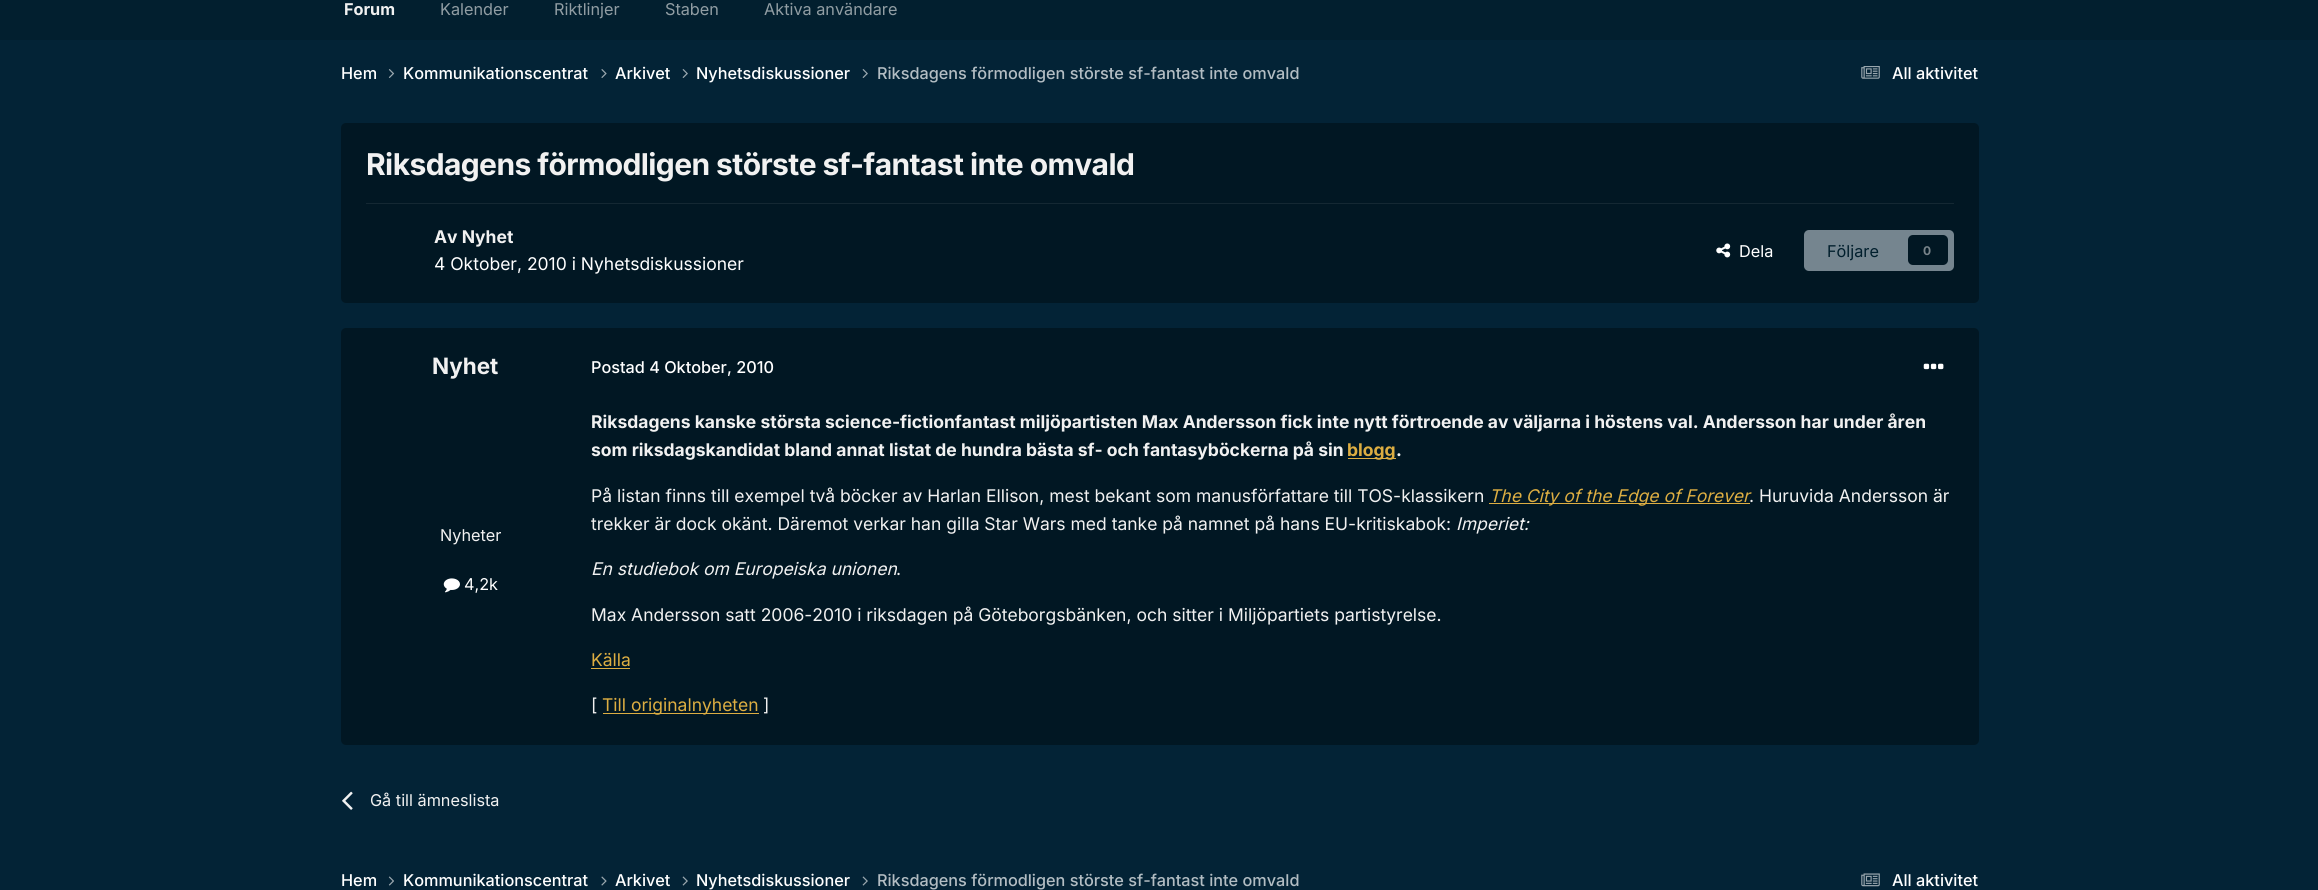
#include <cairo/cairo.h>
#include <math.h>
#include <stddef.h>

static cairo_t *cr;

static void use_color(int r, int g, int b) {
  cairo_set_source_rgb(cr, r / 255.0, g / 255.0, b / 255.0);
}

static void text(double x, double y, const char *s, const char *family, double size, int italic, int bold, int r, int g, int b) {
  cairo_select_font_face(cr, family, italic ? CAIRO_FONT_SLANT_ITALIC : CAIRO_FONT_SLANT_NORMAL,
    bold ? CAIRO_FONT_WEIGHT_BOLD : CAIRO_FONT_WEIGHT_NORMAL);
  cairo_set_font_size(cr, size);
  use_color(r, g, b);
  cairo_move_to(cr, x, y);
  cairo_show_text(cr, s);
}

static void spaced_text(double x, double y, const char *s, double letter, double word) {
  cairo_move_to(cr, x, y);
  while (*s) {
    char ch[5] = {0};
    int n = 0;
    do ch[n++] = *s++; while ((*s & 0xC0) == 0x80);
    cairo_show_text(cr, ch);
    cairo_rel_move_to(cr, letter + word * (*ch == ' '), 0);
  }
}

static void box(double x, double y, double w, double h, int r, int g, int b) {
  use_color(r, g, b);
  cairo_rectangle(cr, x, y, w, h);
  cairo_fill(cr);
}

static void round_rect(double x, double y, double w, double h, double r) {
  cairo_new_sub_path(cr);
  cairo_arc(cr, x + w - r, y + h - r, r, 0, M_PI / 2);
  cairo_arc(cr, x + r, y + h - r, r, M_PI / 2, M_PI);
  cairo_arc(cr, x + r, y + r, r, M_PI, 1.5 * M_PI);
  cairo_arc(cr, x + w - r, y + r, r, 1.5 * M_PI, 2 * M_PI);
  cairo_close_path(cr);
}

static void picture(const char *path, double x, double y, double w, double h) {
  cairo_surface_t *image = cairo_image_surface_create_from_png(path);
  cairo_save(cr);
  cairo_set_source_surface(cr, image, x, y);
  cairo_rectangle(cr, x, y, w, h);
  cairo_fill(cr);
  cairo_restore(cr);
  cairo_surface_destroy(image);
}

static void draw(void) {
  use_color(3, 35, 54);
  cairo_paint(cr);
  box(0, 0, 2318, 40, 2, 31, 47);
  picture("img_01.png", 388, 69, 7, 9);
  picture("img_02.png", 601, 69, 6, 9);
  picture("img_03.png", 682, 69, 6, 9);
  picture("img_03.png", 862, 69, 6, 9);
  picture("img_04.png", 1861, 66, 19, 13);
  use_color(1, 23, 35);
  round_rect(341, 123, 1638, 180, 5);
  cairo_fill(cr);
  box(366, 203, 1588, 1, 20, 40, 51);
  picture("img_05.png", 1716, 243, 15, 15);
  use_color(117, 133, 143);
  round_rect(1804, 230, 150, 41, 5);
  cairo_fill(cr);
  use_color(1, 23, 35);
  round_rect(1908, 235, 40, 30, 5);
  cairo_fill(cr);
  round_rect(341, 328, 1638, 417, 5);
  cairo_fill(cr);
  picture("img_06.png", 443, 578, 17, 15);
  picture("img_07.png", 1923, 363, 21, 7);
  box(1348, 458, 48, 1, 221, 174, 66);
  box(1489, 503, 261, 1, 221, 174, 66);
  box(591, 668, 39, 1, 221, 174, 66);
  box(603, 713, 156, 1, 221, 174, 66);
  picture("img_08.png", 342, 791, 11, 19);
  picture("img_09.png", 388, 876, 6, 10);
  picture("img_10.png", 601, 876, 6, 10);
  picture("img_11.png", 682, 876, 6, 10);
  picture("img_11.png", 862, 876, 6, 10);
  picture("img_12.png", 1861, 873, 19, 14);
  text(344, 15, "Forum", "Inter", 16.25, 0, 1, 241, 241, 241);
  text(440, 15, "Kalender", "Inter", 16.25, 0, 0, 145, 157, 163);
  text(554, 15, "Riktlinjer", "Inter", 16.25, 0, 0, 145, 157, 163);
  text(665, 15, "Staben", "Inter", 16.25, 0, 0, 145, 157, 163);
  text(764, 15, "Aktiva användare", "Inter", 16.25, 0, 0, 145, 157, 163);
  text(341, 79, "Hem", "Inter Medium", 16.25, 0, 0, 255, 255, 255);
  text(403, 79, "Kommunikationscentrat", "Inter Medium", 16.25, 0, 0, 255, 255, 255);
  text(615, 79, "Arkivet", "Inter Medium", 16.25, 0, 0, 255, 255, 255);
  text(696, 79, "Nyhetsdiskussioner", "Inter Medium", 16.25, 0, 0, 255, 255, 255);
  text(877, 79, "Riksdagens förmodligen störste sf-fantast inte omvald", "Inter Medium", 16.25, 0, 0, 179, 189, 195);
  text(1892, 79, "All aktivitet", "Inter Medium", 16.25, 0, 0, 255, 255, 255);
  cairo_select_font_face(cr, "Inter", CAIRO_FONT_SLANT_NORMAL, CAIRO_FONT_WEIGHT_BOLD);
  cairo_set_font_size(cr, 30);
  use_color(241, 241, 241);
  spaced_text(366, 175, "Riksdagens förmodligen störste sf-fantast inte omvald", -0.6, 0);
  text(434, 243, "Av Nyhet", "Inter", 17.5, 0, 1, 241, 241, 241);
  text(434, 270, "4 Oktober, 2010 i Nyhetsdiskussioner", "Inter", 17.5, 0, 0, 255, 255, 255);
  text(1739, 257, "Dela", "Inter", 16.25, 0, 0, 255, 255, 255);
  text(1827, 257, "Följare", "Inter", 16.25, 0, 0, 1, 31, 45);
  text(1923, 255, "0", "Inter", 12, 0, 1, 121, 132, 138);
  text(432, 374, "Nyhet", "Inter", 22.5, 0, 1, 241, 241, 241);
  text(440, 541, "Nyheter", "Inter", 16.25, 0, 0, 241, 241, 241);
  text(464, 590, "4,2k", "Inter", 16.25, 0, 0, 255, 255, 255);
  text(591, 373, "Postad 4 Oktober, 2010", "Inter Medium", 16.25, 0, 0, 255, 255, 255);
  text(591, 428, "Riksdagens kanske största science-fictionfantast miljöpartisten Max Andersson fick inte nytt förtroende av väljarna i höstens val. Andersson har under åren", "Inter", 17.5, 0, 1, 241, 241, 241);
  text(591, 456, "som riksdagskandidat bland annat listat de hundra bästa sf- och fantasyböckerna på sin", "Inter", 17.5, 0, 1, 241, 241, 241);
  text(1347, 456, "blogg", "Inter", 17.5, 0, 1, 221, 174, 66);
  text(1396, 456, ".", "Inter", 17.5, 0, 1, 241, 241, 241);
  text(591, 502, "På listan finns till exempel två böcker av Harlan Ellison, mest bekant som manusförfattare till TOS-klassikern", "Inter", 17.5, 0, 0, 241, 241, 241);
  text(1489, 502, "The City of the Edge of Forever", "Inter", 17.5, 1, 0, 221, 174, 66);
  text(1749, 502, ". Huruvida Andersson är", "Inter", 17.5, 0, 0, 241, 241, 241);
  text(591, 530, "trekker är dock okänt. Däremot verkar han gilla Star Wars med tanke på namnet på hans EU-kritiskabok:", "Inter", 17.5, 0, 0, 241, 241, 241);
  text(1456, 530, "Imperiet:", "Inter", 17.5, 1, 0, 241, 241, 241);
  text(591, 575, "En studiebok om Europeiska unionen", "Inter", 17.5, 1, 0, 241, 241, 241);
  text(896, 575, ".", "Inter", 17.5, 0, 0, 241, 241, 241);
  text(591, 621, "Max Andersson satt 2006-2010 i riksdagen på Göteborgsbänken, och sitter i Miljöpartiets partistyrelse.", "Inter", 17.5, 0, 0, 241, 241, 241);
  text(591, 666, "Källa", "Inter", 17.5, 0, 0, 221, 174, 66);
  text(591, 711, "[", "Inter", 17.5, 0, 0, 241, 241, 241);
  text(602, 711, "Till originalnyheten", "Inter", 17.5, 0, 0, 221, 174, 66);
  text(763, 711, "]", "Inter", 17.5, 0, 0, 241, 241, 241);
  text(370, 806, "Gå till ämneslista", "Inter", 16.25, 0, 0, 241, 241, 241);
  text(341, 886, "Hem", "Inter Medium", 16.25, 0, 0, 255, 255, 255);
  text(403, 886, "Kommunikationscentrat", "Inter Medium", 16.25, 0, 0, 255, 255, 255);
  text(615, 886, "Arkivet", "Inter Medium", 16.25, 0, 0, 255, 255, 255);
  text(696, 886, "Nyhetsdiskussioner", "Inter Medium", 16.25, 0, 0, 255, 255, 255);
  text(877, 886, "Riksdagens förmodligen störste sf-fantast inte omvald", "Inter Medium", 16.25, 0, 0, 179, 189, 195);
  text(1892, 886, "All aktivitet", "Inter Medium", 16.25, 0, 0, 255, 255, 255);
}

int main(void) {
  cairo_surface_t *surface = cairo_image_surface_create(CAIRO_FORMAT_RGB24, 2318, 890);
  cr = cairo_create(surface);
  cairo_font_options_t *options = cairo_font_options_create();
  cairo_font_options_set_hint_metrics(options, CAIRO_HINT_METRICS_OFF);
  cairo_font_options_set_hint_style(options, CAIRO_HINT_STYLE_NONE);
  cairo_set_font_options(cr, options);
  cairo_set_miter_limit(cr, 4);
  draw();
  cairo_surface_write_to_png(surface, "out.png");
  cairo_font_options_destroy(options);
  cairo_destroy(cr);
  cairo_surface_destroy(surface);
  return 0;
}
